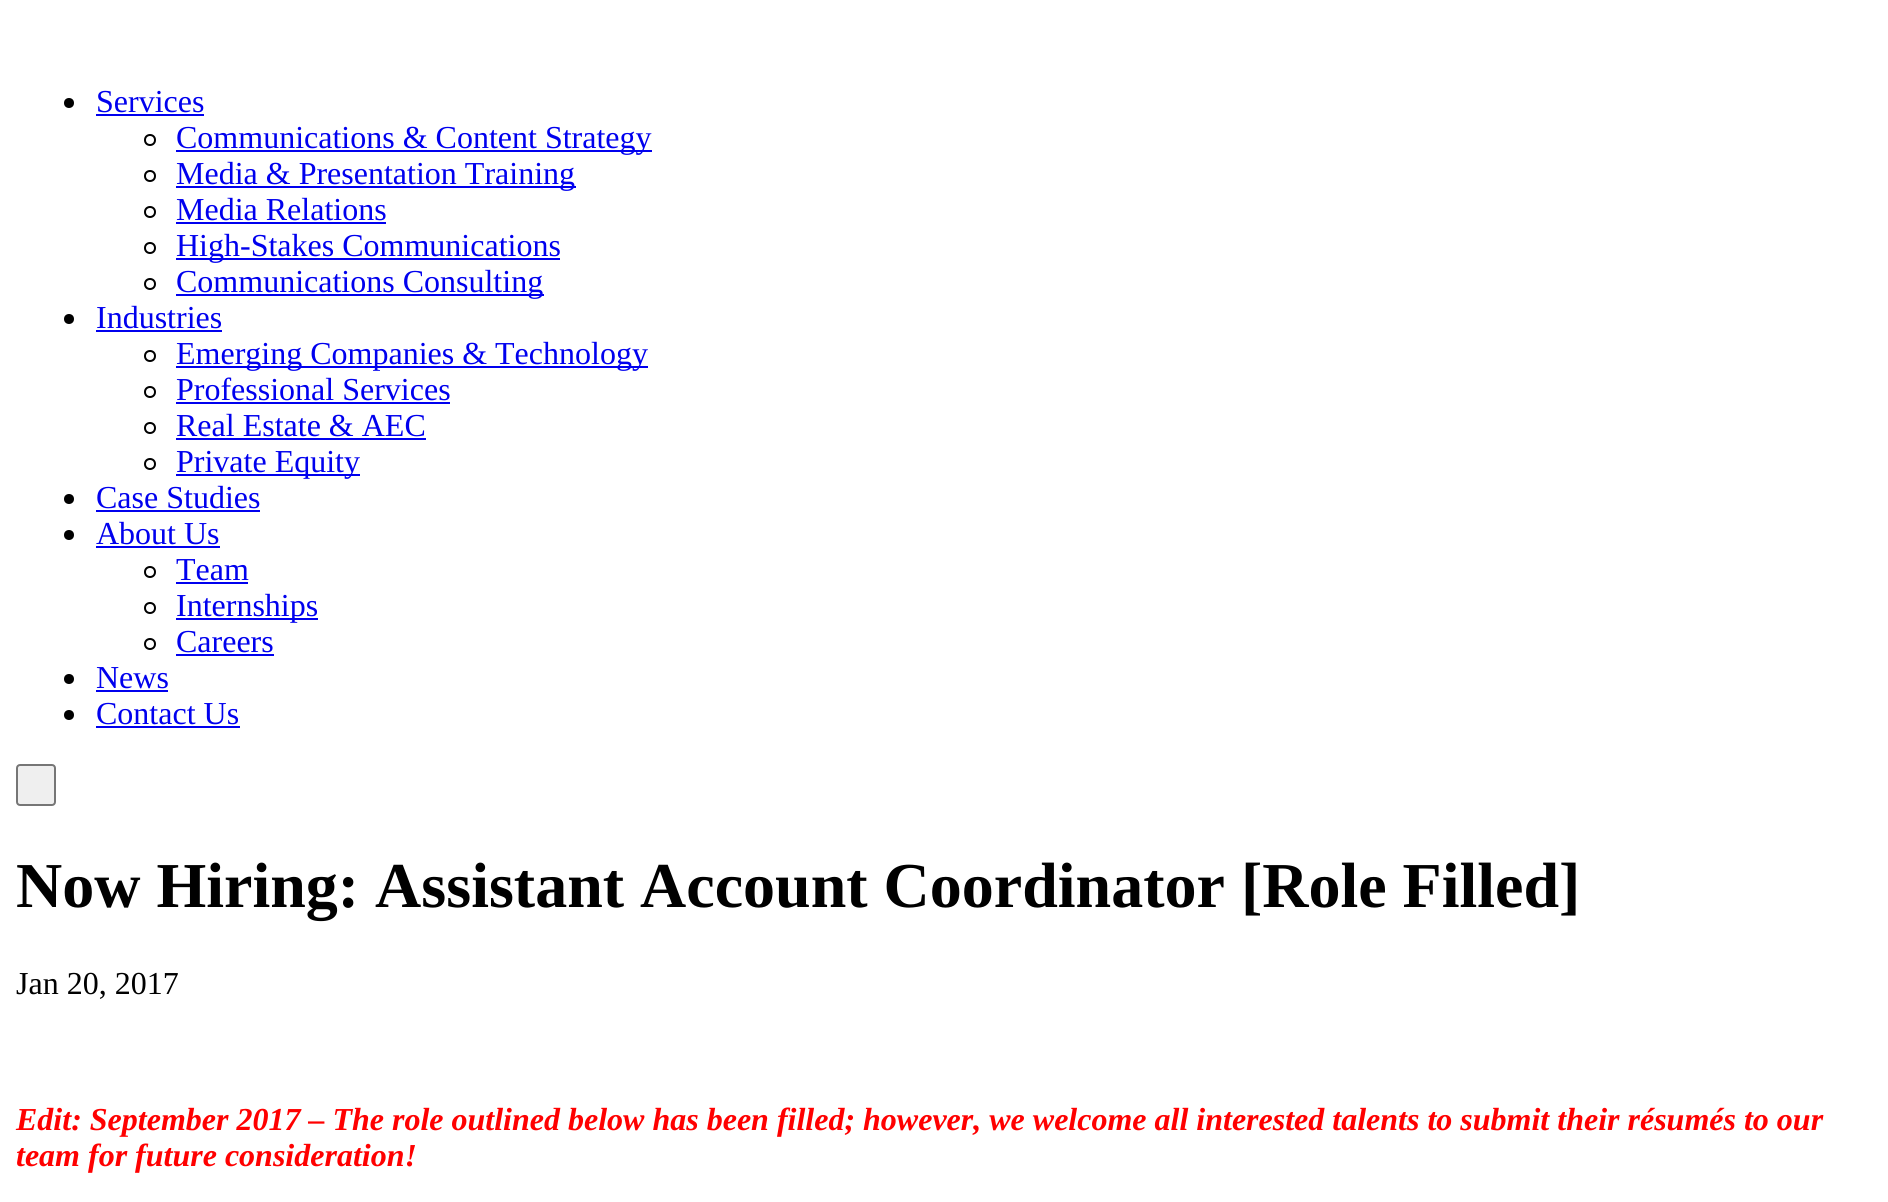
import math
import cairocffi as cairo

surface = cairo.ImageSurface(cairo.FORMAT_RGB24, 1888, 1202)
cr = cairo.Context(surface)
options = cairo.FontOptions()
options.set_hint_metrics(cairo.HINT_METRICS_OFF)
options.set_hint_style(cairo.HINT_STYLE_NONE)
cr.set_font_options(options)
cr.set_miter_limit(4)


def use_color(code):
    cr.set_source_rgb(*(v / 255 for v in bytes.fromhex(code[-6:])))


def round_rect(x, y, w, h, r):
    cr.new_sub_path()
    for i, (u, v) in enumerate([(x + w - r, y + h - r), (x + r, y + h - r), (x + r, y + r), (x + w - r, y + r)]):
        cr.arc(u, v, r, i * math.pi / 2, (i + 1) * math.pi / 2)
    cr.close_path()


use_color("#ffffff")
cr.paint()
use_color("#000000")
cr.arc(69, 103, 5, 0, 2 * math.pi)
cr.fill()
cr.select_font_face("Liberation Serif")
cr.set_font_size(32)
use_color("#0000ee")
cr.move_to(96, 112)
cr.show_text("Services")
cr.rectangle(96, 114, 108, 2)
cr.fill()
cr.arc(150, 140, 5, 0, 2 * math.pi)
use_color("#000000")
cr.stroke()
use_color("#0000ee")
cr.rectangle(176, 150, 476, 2)
cr.fill()
cr.move_to(176, 148)
cr.show_text("Communications & Content Strategy")
cr.new_path()
cr.arc(150, 176, 5, 0, 2 * math.pi)
use_color("#000000")
cr.stroke()
use_color("#0000ee")
cr.rectangle(176, 186, 400, 2)
cr.fill()
cr.move_to(176, 184)
cr.show_text("Media & Presentation Training")
cr.new_path()
cr.arc(150, 212, 5, 0, 2 * math.pi)
use_color("#000000")
cr.stroke()
use_color("#0000ee")
cr.move_to(176, 220)
cr.show_text("Media Relations")
cr.rectangle(176, 222, 210, 2)
cr.fill()
cr.arc(150, 248, 5, 0, 2 * math.pi)
use_color("#000000")
cr.stroke()
use_color("#0000ee")
cr.rectangle(176, 258, 384, 2)
cr.fill()
cr.move_to(176, 256)
cr.show_text("High-Stakes Communications")
cr.new_path()
cr.arc(150, 284, 5, 0, 2 * math.pi)
use_color("#000000")
cr.stroke()
use_color("#0000ee")
cr.rectangle(176, 294, 368, 2)
cr.fill()
cr.move_to(176, 292)
cr.show_text("Communications Consulting")
use_color("#000000")
cr.new_path()
cr.arc(69, 319, 5, 0, 2 * math.pi)
cr.fill()
use_color("#0000ee")
cr.move_to(96, 328)
cr.show_text("Industries")
cr.rectangle(96, 330, 126, 2)
cr.fill()
cr.arc(150, 356, 5, 0, 2 * math.pi)
use_color("#000000")
cr.stroke()
use_color("#0000ee")
cr.rectangle(176, 366, 472, 2)
cr.fill()
cr.move_to(176, 364)
cr.show_text("Emerging Companies & Technology")
cr.new_path()
cr.arc(150, 392, 5, 0, 2 * math.pi)
use_color("#000000")
cr.stroke()
use_color("#0000ee")
cr.move_to(176, 400)
cr.show_text("Professional Services")
cr.rectangle(176, 402, 274, 2)
cr.fill()
cr.arc(150, 428, 5, 0, 2 * math.pi)
use_color("#000000")
cr.stroke()
use_color("#0000ee")
cr.move_to(176, 436)
cr.show_text("Real Estate & AEC")
cr.rectangle(176, 438, 250, 2)
cr.fill()
cr.arc(150, 464, 5, 0, 2 * math.pi)
use_color("#000000")
cr.stroke()
use_color("#0000ee")
cr.rectangle(176, 474, 184, 2)
cr.fill()
cr.move_to(176, 472)
cr.show_text("Private Equity")
use_color("#000000")
cr.new_path()
cr.arc(69, 499, 5, 0, 2 * math.pi)
cr.fill()
use_color("#0000ee")
cr.move_to(96, 508)
cr.show_text("Case Studies")
cr.rectangle(96, 510, 164, 2)
cr.fill()
use_color("#000000")
cr.arc(69, 535, 5, 0, 2 * math.pi)
cr.fill()
use_color("#0000ee")
cr.move_to(96, 544)
cr.show_text("About Us")
cr.rectangle(96, 546, 124, 2)
cr.fill()
cr.arc(150, 572, 5, 0, 2 * math.pi)
use_color("#000000")
cr.stroke()
use_color("#0000ee")
cr.move_to(176, 580)
cr.show_text("Team")
cr.rectangle(176, 582, 72, 2)
cr.fill()
cr.arc(150, 608, 5, 0, 2 * math.pi)
use_color("#000000")
cr.stroke()
use_color("#0000ee")
cr.rectangle(176, 618, 142, 2)
cr.fill()
cr.move_to(176, 616)
cr.show_text("Internships")
cr.new_path()
cr.arc(150, 644, 5, 0, 2 * math.pi)
use_color("#000000")
cr.stroke()
use_color("#0000ee")
cr.move_to(176, 652)
cr.show_text("Careers")
cr.rectangle(176, 654, 98, 2)
cr.fill()
use_color("#000000")
cr.arc(69, 679, 5, 0, 2 * math.pi)
cr.fill()
use_color("#0000ee")
cr.move_to(96, 688)
cr.show_text("News")
cr.rectangle(96, 690, 72, 2)
cr.fill()
use_color("#000000")
cr.arc(69, 715, 5, 0, 2 * math.pi)
cr.fill()
use_color("#0000ee")
cr.move_to(96, 724)
cr.show_text("Contact Us")
cr.rectangle(96, 726, 144, 2)
cr.fill()
use_color("#efefef")
round_rect(17, 765, 38, 40, 3)
cr.fill_preserve()
use_color("#767676")
cr.stroke()
cr.select_font_face("Liberation Serif", cairo.FONT_SLANT_NORMAL, cairo.FONT_WEIGHT_BOLD)
cr.set_font_size(64)
use_color("#000000")
cr.move_to(16, 907)
cr.show_text("Now Hiring: Assistant Account Coordinator [Role Filled]")
cr.select_font_face("Liberation Serif")
cr.set_font_size(32)
cr.move_to(16, 994)
cr.show_text("Jan 20, 2017")
cr.select_font_face("Liberation Serif", cairo.FONT_SLANT_ITALIC, cairo.FONT_WEIGHT_BOLD)
use_color("#ff0000")
cr.move_to(16, 1130)
cr.show_text("Edit: September 2017 – The role outlined below has been filled; however, we welcome all interested talents to submit their résumés to our")
cr.move_to(16, 1166)
cr.show_text("team for future consideration!")
surface.write_to_png("result.png")
